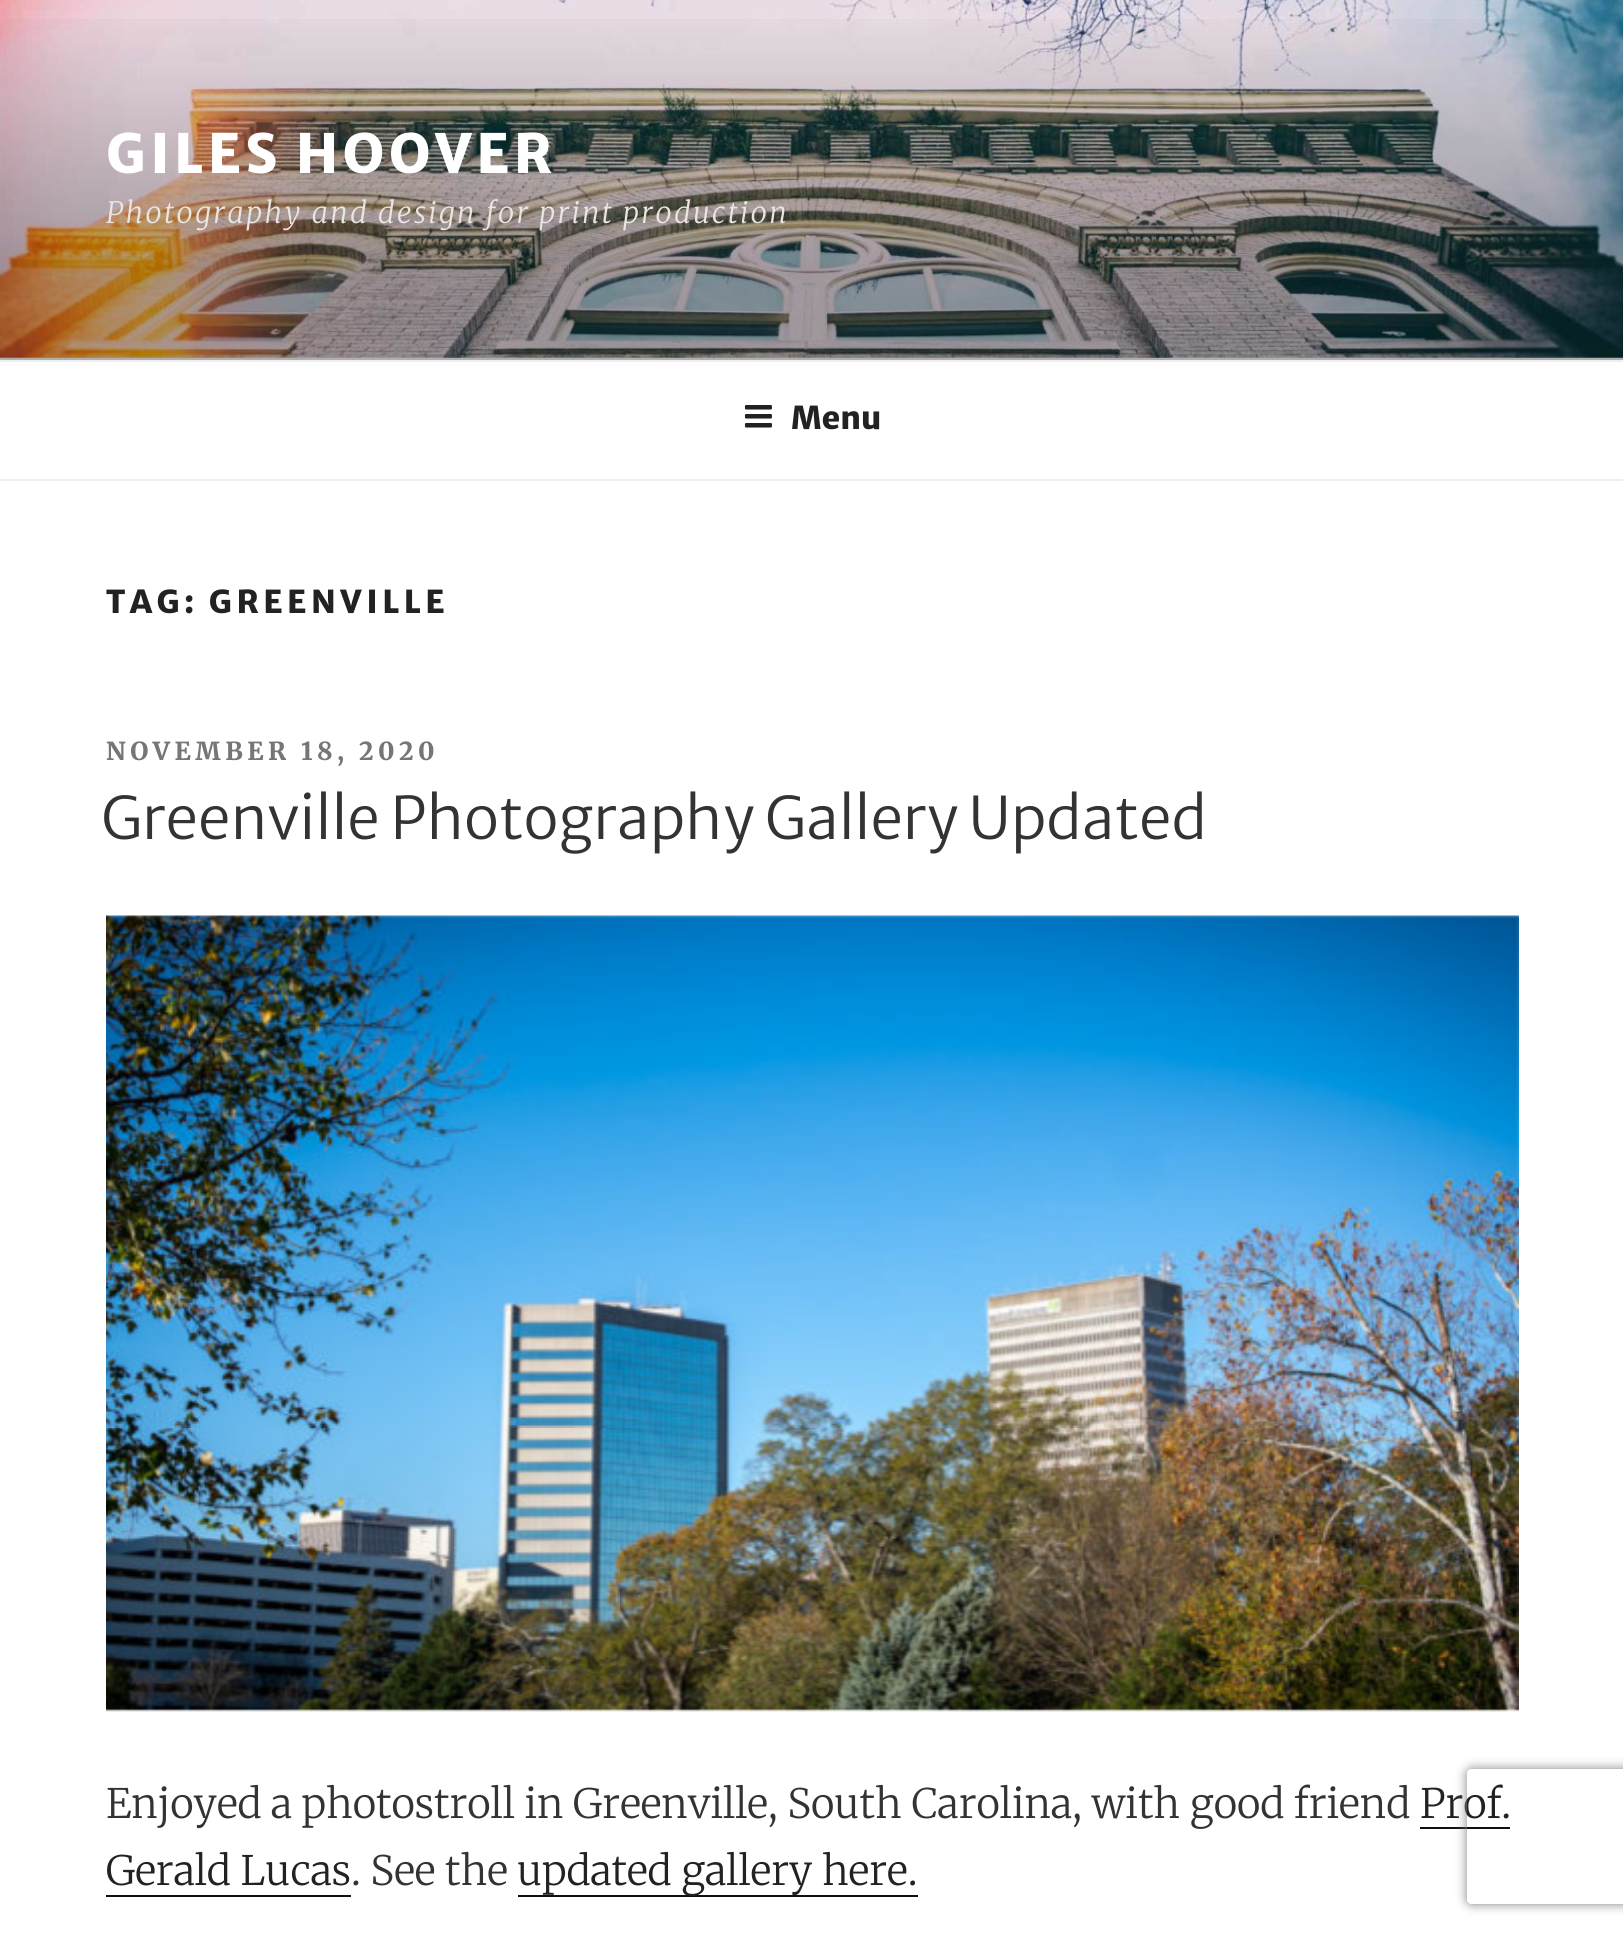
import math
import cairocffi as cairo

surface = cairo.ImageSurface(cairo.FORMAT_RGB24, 1623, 1935)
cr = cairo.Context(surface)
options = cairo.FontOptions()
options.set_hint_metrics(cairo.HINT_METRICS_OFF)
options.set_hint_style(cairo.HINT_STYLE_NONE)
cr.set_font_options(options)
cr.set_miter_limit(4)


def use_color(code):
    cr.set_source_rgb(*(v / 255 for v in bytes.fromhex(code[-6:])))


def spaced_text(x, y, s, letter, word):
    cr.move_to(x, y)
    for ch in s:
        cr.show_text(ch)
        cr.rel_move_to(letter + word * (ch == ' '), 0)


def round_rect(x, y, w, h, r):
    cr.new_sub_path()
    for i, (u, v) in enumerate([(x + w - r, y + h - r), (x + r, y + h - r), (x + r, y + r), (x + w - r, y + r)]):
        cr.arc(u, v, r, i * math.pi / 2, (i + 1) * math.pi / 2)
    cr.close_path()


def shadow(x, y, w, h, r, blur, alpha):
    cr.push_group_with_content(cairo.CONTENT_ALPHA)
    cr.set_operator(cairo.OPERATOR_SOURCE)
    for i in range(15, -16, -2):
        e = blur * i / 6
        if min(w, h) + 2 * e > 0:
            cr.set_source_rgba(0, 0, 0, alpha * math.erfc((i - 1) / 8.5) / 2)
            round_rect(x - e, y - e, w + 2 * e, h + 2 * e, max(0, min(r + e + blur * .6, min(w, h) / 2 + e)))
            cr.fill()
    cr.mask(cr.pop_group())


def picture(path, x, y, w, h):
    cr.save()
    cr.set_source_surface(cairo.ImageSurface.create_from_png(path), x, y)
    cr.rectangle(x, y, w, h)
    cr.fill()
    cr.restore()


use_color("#ffffff")
cr.paint()
use_color("#fafafa")
cr.rectangle(0, 357, 1623, 3)
cr.fill()
picture("img1.png", 0, 0, 1623, 358)
gradient = cairo.LinearGradient(812, 0, 812, 360)
gradient.add_color_stop_rgba(0, 0, 0, 0, 0)
gradient.add_color_stop_rgba(0.75, 0, 0, 0, 0.3)
gradient.add_color_stop_rgba(1, 0, 0, 0, 0.3)
cr.set_source(gradient)
cr.rectangle(0, 19, 1623, 341)
cr.fill()
cr.select_font_face("Merriweather Sans ExtraBold")
cr.set_font_size(54)
use_color("#ffffff")
spaced_text(106, 173, "GILES HOOVER", 4.25, 0)
cr.select_font_face("Merriweather Light", cairo.FONT_SLANT_ITALIC)
cr.set_font_size(29.25)
use_color("#e9e6e3")
spaced_text(106, 223, "Photography and design for print production", 2.25, 0)
use_color("#eeeeee")
cr.rectangle(0, 360, 1623, 2)
cr.fill()
cr.rectangle(0, 479, 1623, 2)
cr.fill()
picture("img2.png", 744, 405, 28, 23)
cr.select_font_face("Merriweather Sans ExtraBold")
cr.set_font_size(31.5)
use_color("#222222")
cr.move_to(791, 429)
cr.show_text("Menu")
spaced_text(106, 613, "TAG: GREENVILLE", 4.4, 0)
cr.select_font_face("Merriweather ExtraBold")
cr.set_font_size(24.75)
use_color("#767676")
spaced_text(106, 760, "NOVEMBER 18, 2020", 4.5, 0)
cr.select_font_face("Merriweather Sans Light")
cr.set_font_size(58.5)
use_color("#333333")
cr.move_to(101, 839)
cr.show_text("Greenville Photography Gallery Updated")
picture("img3.png", 106, 915, 1413, 797)
cr.select_font_face("Merriweather Light")
cr.set_font_size(40.5)
cr.move_to(106, 1818)
cr.show_text("Enjoyed a photostroll in Greenville, South Carolina, with good friend")
use_color("#222222")
cr.move_to(1420, 1818)
cr.show_text("Prof.")
use_color("#0f0f0f")
cr.rectangle(1420, 1827, 90, 2)
cr.fill()
use_color("#222222")
cr.move_to(106, 1885)
cr.show_text("Gerald Lucas")
use_color("#0f0f0f")
cr.rectangle(106, 1895, 245, 2)
cr.fill()
use_color("#333333")
cr.move_to(351, 1885)
cr.show_text(". See the")
use_color("#0f0f0f")
cr.rectangle(518, 1895, 400, 2)
cr.fill()
use_color("#222222")
cr.move_to(517, 1885)
cr.show_text("updated gallery here.")
cr.save()
cr.set_fill_rule(cairo.FILL_RULE_EVEN_ODD)
cr.new_path()
cr.move_to(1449, 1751)
cr.line_to(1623, 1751)
cr.line_to(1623, 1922)
cr.line_to(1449, 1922)
cr.close_path()
cr.move_to(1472, 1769)
cr.line_to(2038, 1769)
cr.curve_to(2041, 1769, 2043, 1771, 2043, 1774)
cr.line_to(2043, 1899)
cr.curve_to(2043, 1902, 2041, 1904, 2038, 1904)
cr.line_to(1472, 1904)
cr.curve_to(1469, 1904, 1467, 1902, 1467, 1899)
cr.line_to(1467, 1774)
cr.curve_to(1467, 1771, 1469, 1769, 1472, 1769)
cr.close_path()
cr.clip()
use_color("#808080")
shadow(1467, 1769, 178, 135, 5, 5.5, 1)
cr.restore()
surface.write_to_png("result.png")
